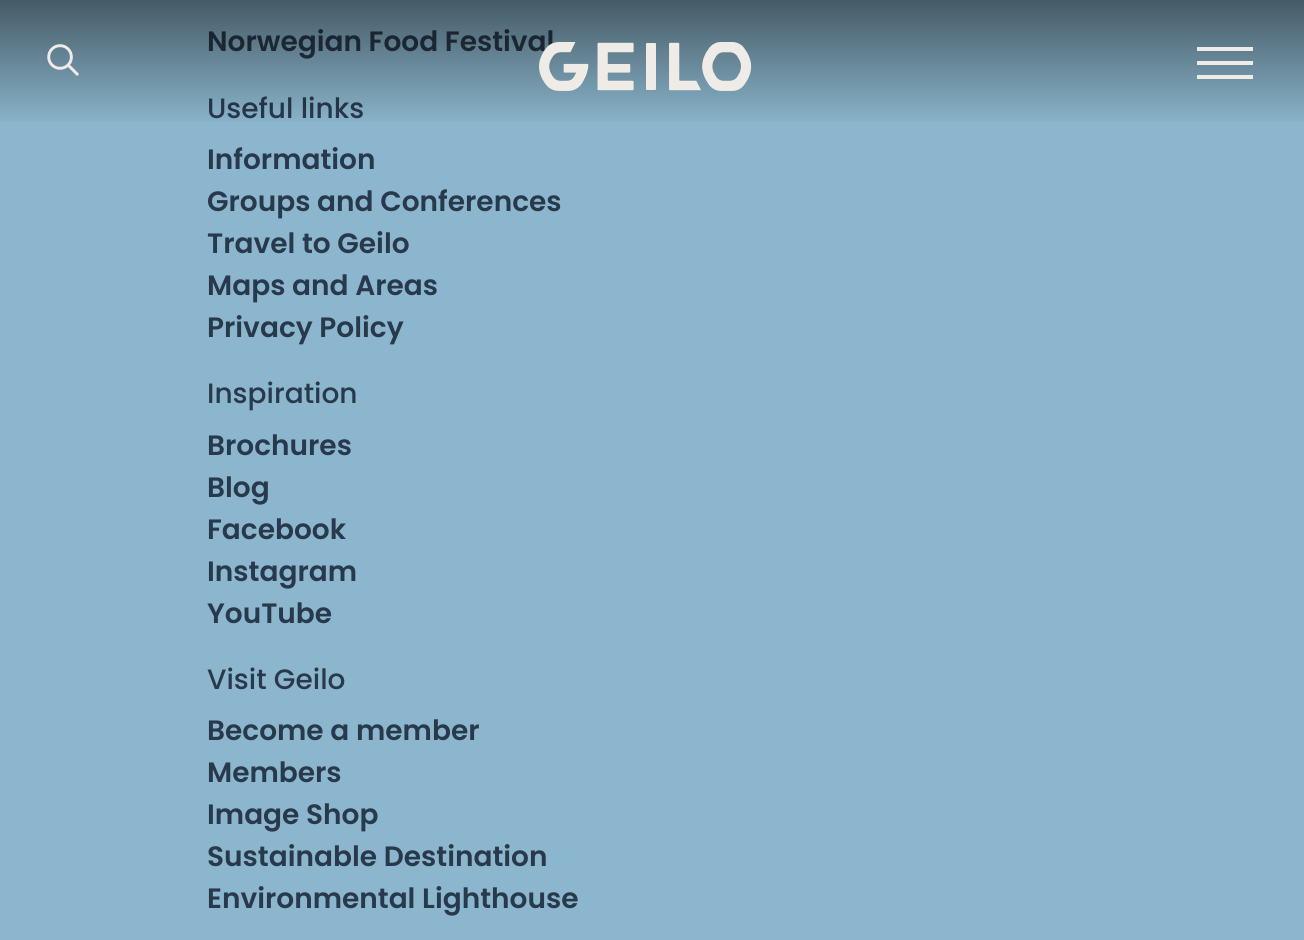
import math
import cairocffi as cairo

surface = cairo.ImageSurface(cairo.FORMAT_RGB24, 1304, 940)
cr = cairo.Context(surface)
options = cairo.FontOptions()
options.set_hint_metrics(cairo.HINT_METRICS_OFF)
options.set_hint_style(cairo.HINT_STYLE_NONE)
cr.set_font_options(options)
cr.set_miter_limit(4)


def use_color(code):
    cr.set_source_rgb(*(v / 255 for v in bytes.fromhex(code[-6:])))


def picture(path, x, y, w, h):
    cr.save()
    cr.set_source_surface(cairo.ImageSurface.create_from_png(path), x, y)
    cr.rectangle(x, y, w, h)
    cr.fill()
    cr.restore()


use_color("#8bb6cd")
cr.paint()
cr.select_font_face("Poppins SemiBold")
cr.set_font_size(28)
use_color("#29394c")
cr.move_to(207, 51)
cr.show_text("Norwegian Food Festival")
cr.select_font_face("Poppins Medium")
cr.move_to(207, 118)
cr.show_text("Useful links")
gradient = cairo.LinearGradient(653, 0, 653, 128)
gradient.add_color_stop_rgba(0, 0, 0, 0, 0.5)
gradient.add_color_stop_rgba(1, 0, 0, 0, 0)
cr.set_source(gradient)
cr.rectangle(0, 0, 1304, 122)
cr.fill()
picture("img1.png", 47, 44, 32, 32)
picture("img2.png", 539, 42, 213, 49)
use_color("#efece8")
cr.rectangle(1197, 47, 56, 4)
cr.fill()
cr.rectangle(1197, 61, 56, 4)
cr.fill()
cr.rectangle(1197, 75, 56, 4)
cr.fill()
cr.select_font_face("Poppins SemiBold")
use_color("#29394c")
cr.move_to(207, 169)
cr.show_text("Information")
cr.move_to(207, 211)
cr.show_text("Groups and Conferences")
cr.move_to(207, 253)
cr.show_text("Travel to Geilo")
cr.move_to(207, 295)
cr.show_text("Maps and Areas")
cr.move_to(207, 337)
cr.show_text("Privacy Policy")
cr.select_font_face("Poppins Medium")
cr.move_to(207, 403)
cr.show_text("Inspiration")
cr.select_font_face("Poppins SemiBold")
cr.move_to(207, 455)
cr.show_text("Brochures")
cr.move_to(207, 497)
cr.show_text("Blog")
cr.move_to(207, 539)
cr.show_text("Facebook")
cr.move_to(207, 581)
cr.show_text("Instagram")
cr.move_to(207, 623)
cr.show_text("YouTube")
cr.select_font_face("Poppins Medium")
cr.move_to(207, 689)
cr.show_text("Visit Geilo")
cr.select_font_face("Poppins SemiBold")
cr.move_to(207, 740)
cr.show_text("Become a member")
cr.move_to(207, 782)
cr.show_text("Members")
cr.move_to(207, 824)
cr.show_text("Image Shop")
cr.move_to(207, 866)
cr.show_text("Sustainable Destination")
cr.move_to(207, 908)
cr.show_text("Environmental Lighthouse")
surface.write_to_png("result.png")
